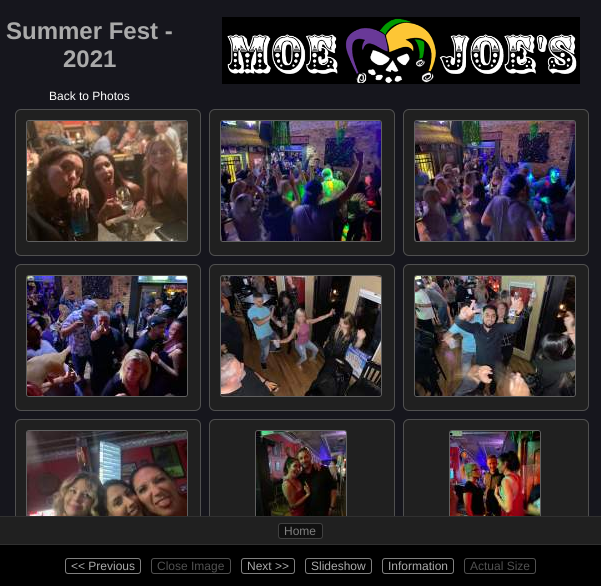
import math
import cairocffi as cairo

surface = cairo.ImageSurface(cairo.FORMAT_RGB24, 601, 586)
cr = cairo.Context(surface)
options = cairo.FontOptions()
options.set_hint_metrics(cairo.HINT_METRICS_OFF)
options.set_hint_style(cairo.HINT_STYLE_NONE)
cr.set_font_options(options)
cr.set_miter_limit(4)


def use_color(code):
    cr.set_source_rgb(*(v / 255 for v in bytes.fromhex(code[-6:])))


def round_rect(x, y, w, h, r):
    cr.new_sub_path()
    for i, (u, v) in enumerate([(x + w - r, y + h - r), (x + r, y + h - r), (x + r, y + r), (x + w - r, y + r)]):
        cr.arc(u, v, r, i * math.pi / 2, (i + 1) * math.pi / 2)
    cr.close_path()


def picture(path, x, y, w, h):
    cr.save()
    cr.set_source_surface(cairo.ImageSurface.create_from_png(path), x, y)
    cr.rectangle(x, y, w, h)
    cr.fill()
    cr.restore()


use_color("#16161d")
cr.paint()
cr.select_font_face("Liberation Sans", cairo.FONT_SLANT_NORMAL, cairo.FONT_WEIGHT_BOLD)
cr.set_font_size(24)
use_color("#aaaaaa")
cr.move_to(6, 39)
cr.show_text("Summer Fest -")
cr.move_to(63, 67)
cr.show_text("2021")
cr.select_font_face("Liberation Sans")
cr.set_font_size(12)
use_color("#ffffff")
cr.move_to(49, 100)
cr.show_text("Back to Photos")
picture("img1.png", 222, 17, 358, 67)
use_color("#202020")
round_rect(15.5, 109.5, 185, 146, 5.5)
cr.fill_preserve()
use_color("#505050")
cr.set_line_width(1)
cr.stroke()
round_rect(26.5, 120.5, 161, 121, 2.5)
use_color("#606060")
cr.stroke()
picture("img2.png", 27, 121, 160, 120)
use_color("#202020")
round_rect(209.5, 109.5, 185, 146, 5.5)
cr.fill_preserve()
use_color("#505050")
cr.stroke()
round_rect(220.5, 120.5, 161, 121, 2.5)
use_color("#606060")
cr.stroke()
picture("img3.png", 221, 121, 160, 120)
use_color("#202020")
round_rect(403.5, 109.5, 185, 146, 5.5)
cr.fill_preserve()
use_color("#505050")
cr.stroke()
round_rect(414.5, 120.5, 161, 121, 2.5)
use_color("#606060")
cr.stroke()
picture("img4.png", 415, 121, 160, 120)
use_color("#202020")
round_rect(15.5, 264.5, 185, 146, 5.5)
cr.fill_preserve()
use_color("#505050")
cr.stroke()
round_rect(26.5, 275.5, 161, 121, 2.5)
use_color("#606060")
cr.stroke()
picture("img5.png", 27, 276, 160, 120)
use_color("#202020")
round_rect(209.5, 264.5, 185, 146, 5.5)
cr.fill_preserve()
use_color("#505050")
cr.stroke()
round_rect(220.5, 275.5, 161, 121, 2.5)
use_color("#606060")
cr.stroke()
picture("img6.png", 221, 276, 160, 120)
use_color("#202020")
round_rect(403.5, 264.5, 185, 146, 5.5)
cr.fill_preserve()
use_color("#505050")
cr.stroke()
round_rect(414.5, 275.5, 161, 121, 2.5)
use_color("#606060")
cr.stroke()
picture("img7.png", 415, 276, 160, 120)
use_color("#202020")
cr.new_path()
cr.move_to(21, 419)
cr.line_to(195, 419)
cr.curve_to(198.5, 419, 201, 421.5, 201, 425)
cr.line_to(201, 516)
cr.line_to(15, 516)
cr.line_to(15, 425)
cr.curve_to(15, 421.5, 17.5, 419, 21, 419)
cr.close_path()
cr.fill()
round_rect(15.5, 419.5, 185, 146, 5.5)
use_color("#505050")
cr.stroke()
round_rect(26.5, 430.5, 161, 121, 2.5)
use_color("#606060")
cr.stroke()
picture("img8.png", 27, 431, 160, 85)
use_color("#202020")
cr.new_path()
cr.move_to(215, 419)
cr.line_to(389, 419)
cr.curve_to(392.5, 419, 395, 421.5, 395, 425)
cr.line_to(395, 516)
cr.line_to(209, 516)
cr.line_to(209, 425)
cr.curve_to(209, 421.5, 211.5, 419, 215, 419)
cr.close_path()
cr.fill()
round_rect(209.5, 419.5, 185, 146, 5.5)
use_color("#505050")
cr.stroke()
round_rect(255.5, 430.5, 91, 121, 2.5)
use_color("#606060")
cr.stroke()
picture("img9.png", 256, 431, 90, 85)
use_color("#202020")
cr.new_path()
cr.move_to(409, 419)
cr.line_to(583, 419)
cr.curve_to(586.5, 419, 589, 421.5, 589, 425)
cr.line_to(589, 516)
cr.line_to(403, 516)
cr.line_to(403, 425)
cr.curve_to(403, 421.5, 405.5, 419, 409, 419)
cr.close_path()
cr.fill()
round_rect(403.5, 419.5, 185, 146, 5.5)
use_color("#505050")
cr.stroke()
round_rect(449.5, 430.5, 91, 121, 2.5)
use_color("#606060")
cr.stroke()
picture("img10.png", 450, 431, 90, 85)
use_color("#202020")
cr.rectangle(0, 517, 601, 27)
cr.fill()
use_color("#303030")
cr.rectangle(0, 516, 601, 1)
cr.fill()
use_color("#101010")
round_rect(278.5, 523.5, 44, 15, 2.5)
cr.fill_preserve()
use_color("#404040")
cr.stroke()
use_color("#808080")
cr.move_to(284, 535)
cr.show_text("Home")
use_color("#000000")
cr.rectangle(0, 545, 601, 41)
cr.fill()
use_color("#303030")
cr.rectangle(0, 544, 601, 1)
cr.fill()
round_rect(65.5, 558.5, 75, 15, 2.5)
use_color("#808080")
cr.stroke()
use_color("#aaaaaa")
cr.move_to(71, 570)
cr.show_text("<< Previous")
round_rect(151.5, 558.5, 79, 15, 2.5)
use_color("#505050")
cr.stroke()
cr.move_to(157, 570)
cr.show_text("Close Image")
round_rect(241.5, 558.5, 53, 15, 2.5)
use_color("#808080")
cr.stroke()
use_color("#aaaaaa")
cr.move_to(247, 570)
cr.show_text("Next >>")
round_rect(305.5, 558.5, 66, 15, 2.5)
use_color("#808080")
cr.stroke()
use_color("#aaaaaa")
cr.move_to(311, 570)
cr.show_text("Slideshow")
round_rect(382.5, 558.5, 71, 15, 2.5)
use_color("#808080")
cr.stroke()
use_color("#aaaaaa")
cr.move_to(388, 570)
cr.show_text("Information")
round_rect(464.5, 558.5, 71, 15, 2.5)
use_color("#505050")
cr.stroke()
cr.move_to(470, 570)
cr.show_text("Actual Size")
surface.write_to_png("result.png")
